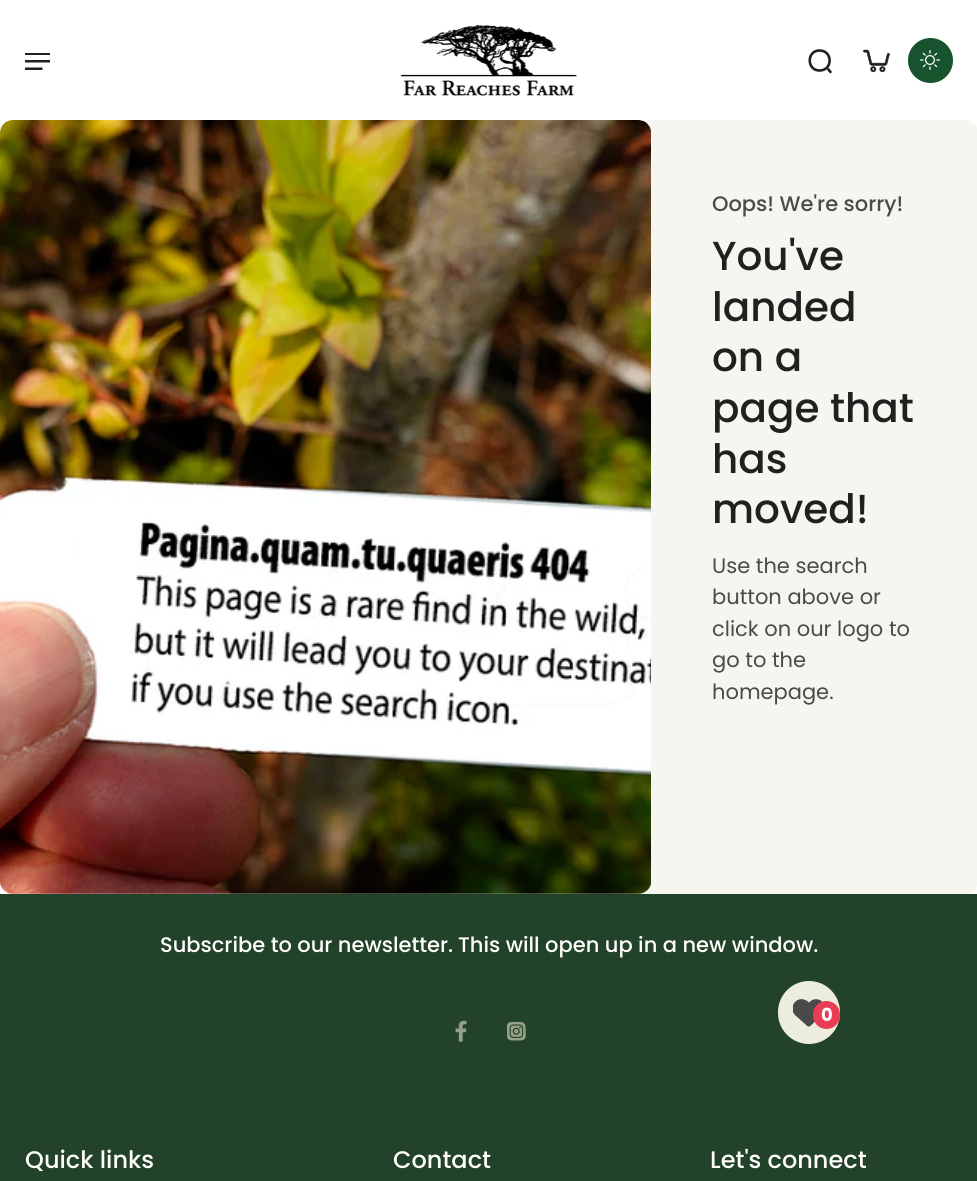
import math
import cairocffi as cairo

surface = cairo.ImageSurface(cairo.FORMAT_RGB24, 977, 1181)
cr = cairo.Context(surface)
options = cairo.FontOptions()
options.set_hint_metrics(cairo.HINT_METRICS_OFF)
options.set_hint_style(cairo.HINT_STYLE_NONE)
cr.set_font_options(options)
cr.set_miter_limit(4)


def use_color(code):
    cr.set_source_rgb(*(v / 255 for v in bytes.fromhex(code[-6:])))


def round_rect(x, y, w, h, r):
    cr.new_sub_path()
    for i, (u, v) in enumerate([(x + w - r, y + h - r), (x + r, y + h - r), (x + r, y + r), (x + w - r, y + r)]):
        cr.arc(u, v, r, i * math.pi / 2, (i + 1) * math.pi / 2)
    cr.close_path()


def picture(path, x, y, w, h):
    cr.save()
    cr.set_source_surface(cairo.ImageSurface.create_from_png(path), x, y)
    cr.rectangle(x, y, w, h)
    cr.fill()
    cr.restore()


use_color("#fffefc")
cr.paint()
use_color("#ffffff")
cr.rectangle(0, 0, 977, 120)
cr.fill()
picture("img1.png", 25, 53, 25, 17)
picture("img2.png", 400, 25, 177, 71)
cr.new_path()
cr.move_to(819.5, 70.5)
cr.curve_to(833, 70.5, 833, 50.5, 819.5, 50.5)
cr.curve_to(806.5, 50.5, 806.5, 70.5, 819.5, 70.5)
cr.close_path()
cr.move_to(830.5, 72)
cr.line_to(828.5, 69.5)
use_color("#212020")
cr.set_line_width(2.6)
cr.set_line_cap(cairo.LINE_CAP_ROUND)
cr.set_line_join(cairo.LINE_JOIN_ROUND)
cr.stroke()
picture("img3.png", 863, 49, 27, 24)
use_color("#17532d")
cr.arc(930.5, 60.5, 22.5, 0, 2 * math.pi)
cr.fill()
picture("img4.png", 920, 50, 20, 20)
use_color("#f6f6f0")
round_rect(0, 120, 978, 774, 13)
cr.fill()
picture("img5.png", 0, 120, 651, 774)
cr.select_font_face("Poppins Medium")
cr.set_font_size(21)
use_color("#4b4949")
cr.move_to(712, 211)
cr.show_text("Oops! We're sorry!")
cr.set_font_size(40.5)
use_color("#212020")
cr.move_to(712, 270)
cr.show_text("You've")
cr.move_to(712, 321)
cr.show_text("landed")
cr.move_to(712, 371)
cr.show_text("on a")
cr.move_to(712, 422)
cr.show_text("page that")
cr.move_to(712, 473)
cr.show_text("has")
cr.move_to(712, 523)
cr.show_text("moved!")
cr.select_font_face("Poppins")
cr.set_font_size(21)
use_color("#4b4949")
cr.move_to(712, 573)
cr.show_text("Use the search")
cr.move_to(712, 604)
cr.show_text("button above or")
cr.move_to(712, 636)
cr.show_text("click on our logo to")
cr.move_to(712, 667)
cr.show_text("go to the")
cr.move_to(712, 699)
cr.show_text("homepage.")
use_color("#224229")
cr.rectangle(0, 894, 977, 287)
cr.fill()
cr.select_font_face("Poppins Medium")
use_color("#fffefc")
cr.move_to(160, 952)
cr.show_text("Subscribe to our newsletter.")
cr.move_to(458, 952)
cr.show_text("This will open up in a new window.")
picture("img6.png", 455, 1020, 12, 22)
picture("img7.png", 506, 1021, 20, 20)
cr.set_font_size(24)
cr.move_to(25, 1168)
cr.show_text("Quick links")
cr.move_to(393, 1168)
cr.show_text("Contact")
cr.move_to(710, 1168)
cr.show_text("Let's connect")
use_color("#ededdd")
round_rect(778, 981, 62, 63, 31)
cr.fill()
cr.save()
cr.rectangle(793, 996, 32, 33)
cr.clip()
use_color("#4b4949")
cr.new_path()
cr.move_to(795.5, 1015.5)
cr.line_to(805, 1024)
cr.curve_to(808.5, 1027.5, 809, 1027.5, 812.5, 1024)
cr.line_to(816, 1020.5)
cr.curve_to(819, 1018.5, 822, 1016, 824, 1013)
cr.curve_to(829, 1003.5, 817, 994, 809, 1002.5)
cr.curve_to(798.5, 992.5, 786.5, 1007, 795.5, 1015.5)
cr.close_path()
cr.fill()
cr.restore()
use_color("#ea3c53")
round_rect(813, 1001, 27, 28, 13.5)
cr.fill()
cr.select_font_face("Poppins", cairo.FONT_SLANT_NORMAL, cairo.FONT_WEIGHT_BOLD)
cr.set_font_size(18)
use_color("#fffefc")
cr.move_to(821, 1021)
cr.show_text("0")
surface.write_to_png("result.png")
